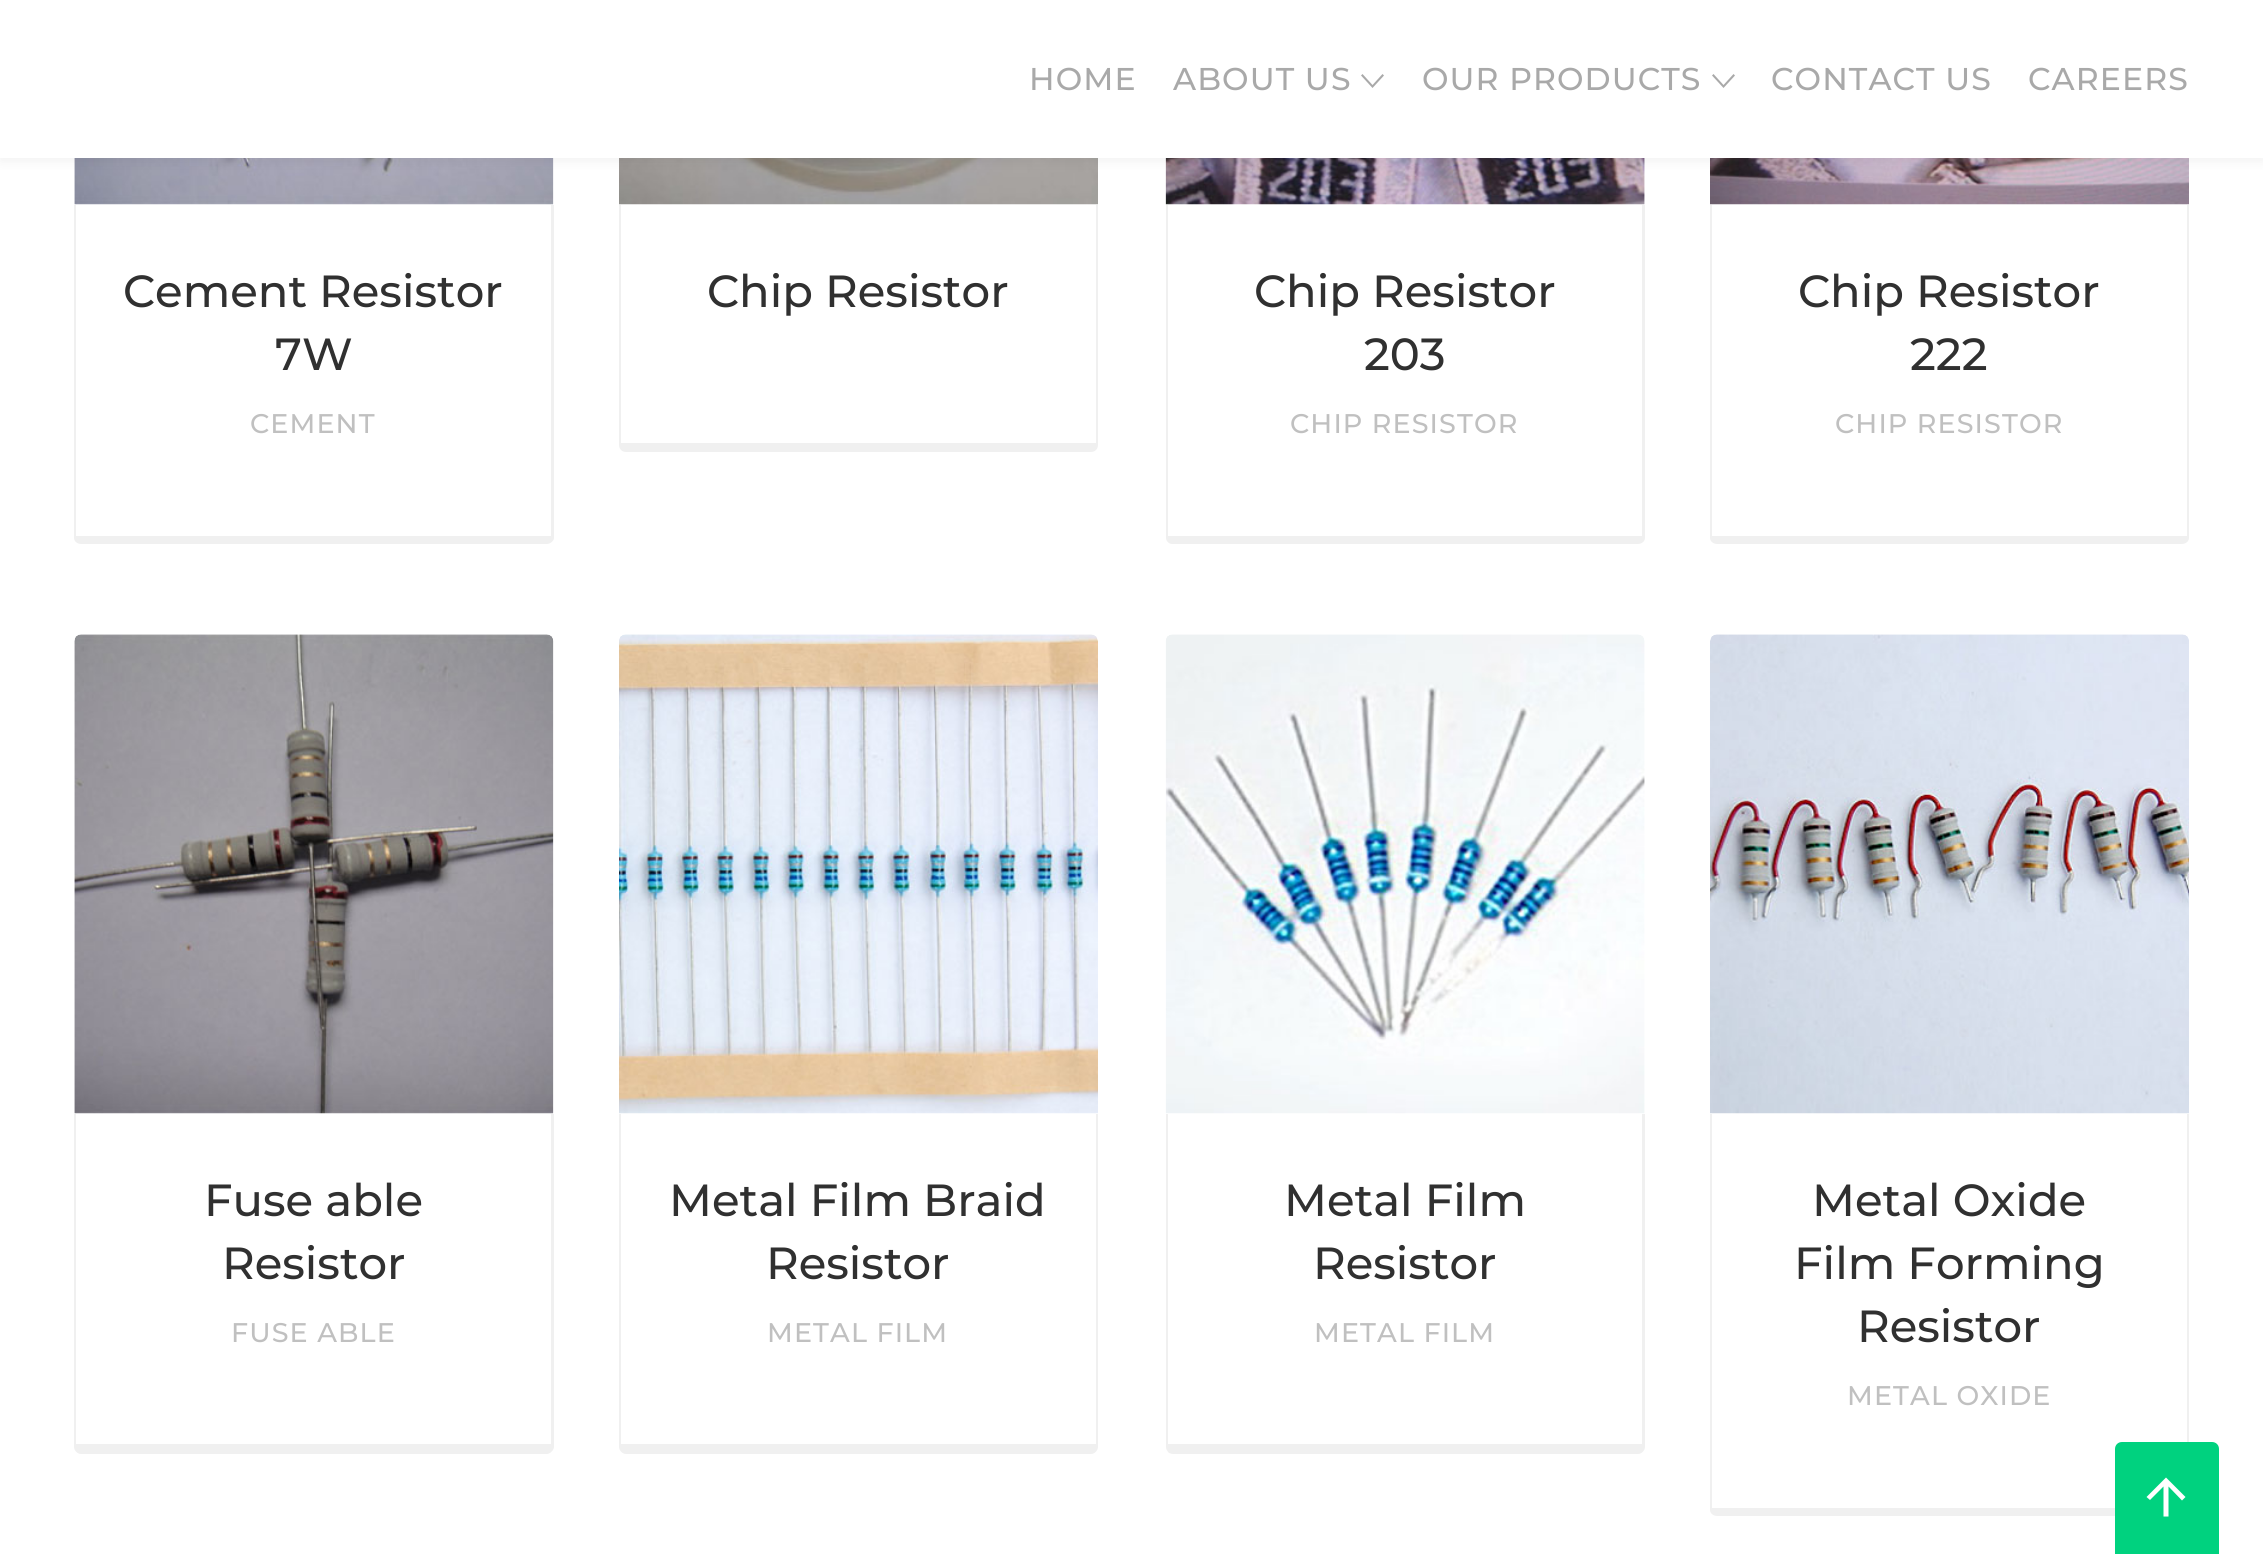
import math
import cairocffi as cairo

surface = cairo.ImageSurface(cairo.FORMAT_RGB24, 2263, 1554)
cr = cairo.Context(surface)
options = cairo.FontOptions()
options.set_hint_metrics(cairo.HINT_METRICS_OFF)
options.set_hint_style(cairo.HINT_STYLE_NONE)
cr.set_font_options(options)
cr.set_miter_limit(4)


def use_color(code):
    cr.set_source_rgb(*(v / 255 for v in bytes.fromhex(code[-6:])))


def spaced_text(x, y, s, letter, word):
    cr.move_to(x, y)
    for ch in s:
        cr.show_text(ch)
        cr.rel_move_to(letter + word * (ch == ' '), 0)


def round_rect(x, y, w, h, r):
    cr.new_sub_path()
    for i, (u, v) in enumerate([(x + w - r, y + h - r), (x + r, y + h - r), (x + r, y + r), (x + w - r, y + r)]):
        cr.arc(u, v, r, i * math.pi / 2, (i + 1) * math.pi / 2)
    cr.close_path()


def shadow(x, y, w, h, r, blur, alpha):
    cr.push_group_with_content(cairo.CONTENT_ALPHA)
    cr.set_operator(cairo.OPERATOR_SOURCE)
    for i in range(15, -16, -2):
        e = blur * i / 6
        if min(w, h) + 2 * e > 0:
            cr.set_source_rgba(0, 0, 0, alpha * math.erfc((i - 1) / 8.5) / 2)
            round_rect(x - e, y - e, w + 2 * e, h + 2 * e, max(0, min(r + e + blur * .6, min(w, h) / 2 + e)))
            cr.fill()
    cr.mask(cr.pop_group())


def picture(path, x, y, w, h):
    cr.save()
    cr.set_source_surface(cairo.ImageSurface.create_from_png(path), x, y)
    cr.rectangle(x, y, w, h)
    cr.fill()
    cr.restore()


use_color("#ffffff")
cr.paint()
picture("img1.png", 74, 158, 480, 47)
picture("img2.png", 619, 158, 479, 47)
picture("img3.png", 1165, 158, 480, 47)
picture("img4.png", 1710, 158, 479, 47)
use_color("#000000")
shadow(0, 5, 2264, 157, 0, 5.5, 0.05)
use_color("#ffffff")
cr.rectangle(0, 0, 2263, 158)
cr.fill()
cr.select_font_face("Montserrat Medium")
cr.set_font_size(31.5)
use_color("#a9a9a9")
spaced_text(1029, 90, "HOME", 1.1, 0)
spaced_text(1173, 90, "ABOUT US", 1.1, 0)
cr.new_path()
cr.move_to(1382.5, 74)
cr.line_to(1384, 75.5)
cr.line_to(1372.5, 88)
cr.line_to(1361, 75.5)
cr.line_to(1362.5, 74)
cr.line_to(1372.5, 85)
cr.close_path()
cr.fill()
spaced_text(1422, 90, "OUR PRODUCTS", 1.1, 0)
cr.new_path()
cr.move_to(1733.5, 74)
cr.line_to(1735, 75.5)
cr.line_to(1723.5, 88)
cr.line_to(1712, 75.5)
cr.line_to(1713.5, 74)
cr.line_to(1723.5, 85)
cr.close_path()
cr.fill()
spaced_text(1771, 90, "CONTACT US", 1.1, 0)
spaced_text(2028, 90, "CAREERS", 1.1, 0)
use_color("#f0f0f0")
cr.set_fill_rule(cairo.FILL_RULE_EVEN_ODD)
cr.new_path()
cr.move_to(74, 205)
cr.line_to(554, 205)
cr.line_to(554, 538)
cr.curve_to(554, 541, 550, 544, 547, 544)
cr.line_to(81, 544)
cr.curve_to(77, 544, 74, 541, 74, 538)
cr.close_path()
cr.move_to(76, 205)
cr.line_to(551, 205)
cr.line_to(551, 536)
cr.line_to(76, 536)
cr.close_path()
cr.fill()
cr.set_font_size(45)
use_color("#303030")
cr.move_to(123, 307)
cr.show_text("Cement Resistor")
cr.move_to(275, 370)
cr.show_text("7W")
cr.set_font_size(27)
use_color("#c0c0c0")
spaced_text(250, 433, "CEMENT", 1.1, 0)
use_color("#f0f0f0")
cr.set_fill_rule(cairo.FILL_RULE_WINDING)
cr.new_path()
cr.move_to(621, 205)
cr.line_to(619, 205)
cr.line_to(619, 445)
cr.curve_to(619, 449, 622, 452, 626, 452)
cr.line_to(1091, 452)
cr.curve_to(1095, 452, 1098, 449, 1098, 445)
cr.line_to(1098, 205)
cr.line_to(1096, 205)
cr.line_to(1096, 443)
cr.line_to(621, 443)
cr.close_path()
cr.fill()
cr.set_font_size(45)
use_color("#303030")
cr.move_to(707, 307)
cr.show_text("Chip Resistor")
use_color("#f0f0f0")
cr.set_fill_rule(cairo.FILL_RULE_EVEN_ODD)
cr.new_path()
cr.move_to(1166, 205)
cr.line_to(1645, 205)
cr.line_to(1645, 538)
cr.curve_to(1645, 541, 1642, 544, 1638, 544)
cr.line_to(1172, 544)
cr.curve_to(1169, 544, 1166, 541, 1166, 538)
cr.close_path()
cr.move_to(1168, 205)
cr.line_to(1642, 205)
cr.line_to(1642, 536)
cr.line_to(1168, 536)
cr.close_path()
cr.fill()
use_color("#303030")
cr.move_to(1254, 307)
cr.show_text("Chip Resistor")
cr.move_to(1364, 370)
cr.show_text("203")
cr.set_font_size(27)
use_color("#c0c0c0")
spaced_text(1290, 433, "CHIP RESISTOR", 1.1, 0)
use_color("#f0f0f0")
cr.new_path()
cr.move_to(1710, 205)
cr.line_to(2189, 205)
cr.line_to(2189, 538)
cr.curve_to(2189, 541, 2186, 544, 2182, 544)
cr.line_to(1717, 544)
cr.curve_to(1713, 544, 1710, 541, 1710, 538)
cr.close_path()
cr.move_to(1712, 205)
cr.line_to(2187, 205)
cr.line_to(2187, 536)
cr.line_to(1712, 536)
cr.close_path()
cr.fill()
cr.set_font_size(45)
use_color("#303030")
cr.move_to(1798, 307)
cr.show_text("Chip Resistor")
cr.move_to(1910, 370)
cr.show_text("222")
cr.set_font_size(27)
use_color("#c0c0c0")
spaced_text(1835, 433, "CHIP RESISTOR", 1.1, 0)
picture("img5.png", 74, 634, 480, 480)
use_color("#f0f0f0")
cr.new_path()
cr.move_to(74, 1114)
cr.line_to(554, 1114)
cr.line_to(554, 1447)
cr.curve_to(554, 1450, 550, 1454, 547, 1454)
cr.line_to(81, 1454)
cr.curve_to(77, 1454, 74, 1450, 74, 1447)
cr.close_path()
cr.move_to(76, 1114)
cr.line_to(551, 1114)
cr.line_to(551, 1444)
cr.line_to(76, 1444)
cr.close_path()
cr.fill()
cr.set_font_size(45)
use_color("#303030")
cr.move_to(204, 1216)
cr.show_text("Fuse able")
cr.move_to(222, 1279)
cr.show_text("Resistor")
cr.set_font_size(27)
use_color("#c0c0c0")
spaced_text(231, 1342, "FUSE ABLE", 1.1, 0)
picture("img6.png", 619, 634, 479, 480)
use_color("#f0f0f0")
cr.new_path()
cr.move_to(619, 1114)
cr.line_to(1098, 1114)
cr.line_to(1098, 1447)
cr.curve_to(1098, 1450, 1095, 1454, 1091, 1454)
cr.line_to(626, 1454)
cr.curve_to(622, 1454, 619, 1450, 619, 1447)
cr.close_path()
cr.move_to(621, 1114)
cr.line_to(1096, 1114)
cr.line_to(1096, 1444)
cr.line_to(621, 1444)
cr.close_path()
cr.fill()
cr.set_font_size(45)
use_color("#303030")
cr.move_to(669, 1216)
cr.show_text("Metal Film Braid")
cr.move_to(766, 1279)
cr.show_text("Resistor")
cr.set_font_size(27)
use_color("#c0c0c0")
spaced_text(767, 1342, "METAL FILM", 1.1, 0)
picture("img7.png", 1165, 634, 480, 480)
use_color("#f0f0f0")
cr.set_fill_rule(cairo.FILL_RULE_WINDING)
cr.new_path()
cr.move_to(1168, 1114)
cr.line_to(1166, 1114)
cr.line_to(1166, 1447)
cr.curve_to(1166, 1449, 1167, 1451, 1169, 1453)
cr.curve_to(1170, 1453, 1171, 1454, 1173, 1454)
cr.line_to(1638, 1454)
cr.curve_to(1642, 1454, 1645, 1450, 1645, 1447)
cr.line_to(1645, 1114)
cr.line_to(1642, 1114)
cr.line_to(1642, 1444)
cr.line_to(1168, 1444)
cr.close_path()
cr.fill()
cr.set_font_size(45)
use_color("#303030")
cr.move_to(1284, 1216)
cr.show_text("Metal Film")
cr.move_to(1313, 1279)
cr.show_text("Resistor")
cr.set_font_size(27)
use_color("#c0c0c0")
spaced_text(1314, 1342, "METAL FILM", 1.1, 0)
picture("img8.png", 1710, 634, 479, 480)
use_color("#f0f0f0")
cr.set_fill_rule(cairo.FILL_RULE_EVEN_ODD)
cr.new_path()
cr.move_to(1710, 1114)
cr.line_to(2189, 1114)
cr.line_to(2189, 1510)
cr.curve_to(2189, 1513, 2186, 1516, 2182, 1516)
cr.line_to(1717, 1516)
cr.curve_to(1713, 1516, 1710, 1513, 1710, 1510)
cr.close_path()
cr.move_to(1712, 1114)
cr.line_to(2187, 1114)
cr.line_to(2187, 1508)
cr.line_to(1712, 1508)
cr.close_path()
cr.fill()
cr.set_font_size(45)
use_color("#303030")
cr.move_to(1812, 1216)
cr.show_text("Metal Oxide")
cr.move_to(1794, 1279)
cr.show_text("Film Forming")
cr.move_to(1857, 1342)
cr.show_text("Resistor")
cr.set_font_size(27)
use_color("#c0c0c0")
spaced_text(1847, 1405, "METAL OXIDE", 1.1, 0)
use_color("#00d27f")
cr.new_path()
cr.move_to(2122, 1442)
cr.line_to(2212, 1442)
cr.curve_to(2216, 1442, 2219, 1445, 2219, 1449)
cr.line_to(2219, 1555)
cr.line_to(2115, 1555)
cr.line_to(2115, 1449)
cr.curve_to(2115, 1445, 2118, 1442, 2122, 1442)
cr.close_path()
cr.fill()
use_color("#ffffff")
cr.set_fill_rule(cairo.FILL_RULE_WINDING)
cr.new_path()
cr.move_to(2168.5, 1516.5)
cr.line_to(2163.5, 1516.5)
cr.line_to(2163.5, 1486.5)
cr.line_to(2150, 1500)
cr.line_to(2146.5, 1497)
cr.line_to(2166, 1477.5)
cr.line_to(2185.5, 1497)
cr.line_to(2182, 1500.5)
cr.line_to(2168.5, 1486.5)
cr.close_path()
cr.fill()
surface.write_to_png("result.png")
